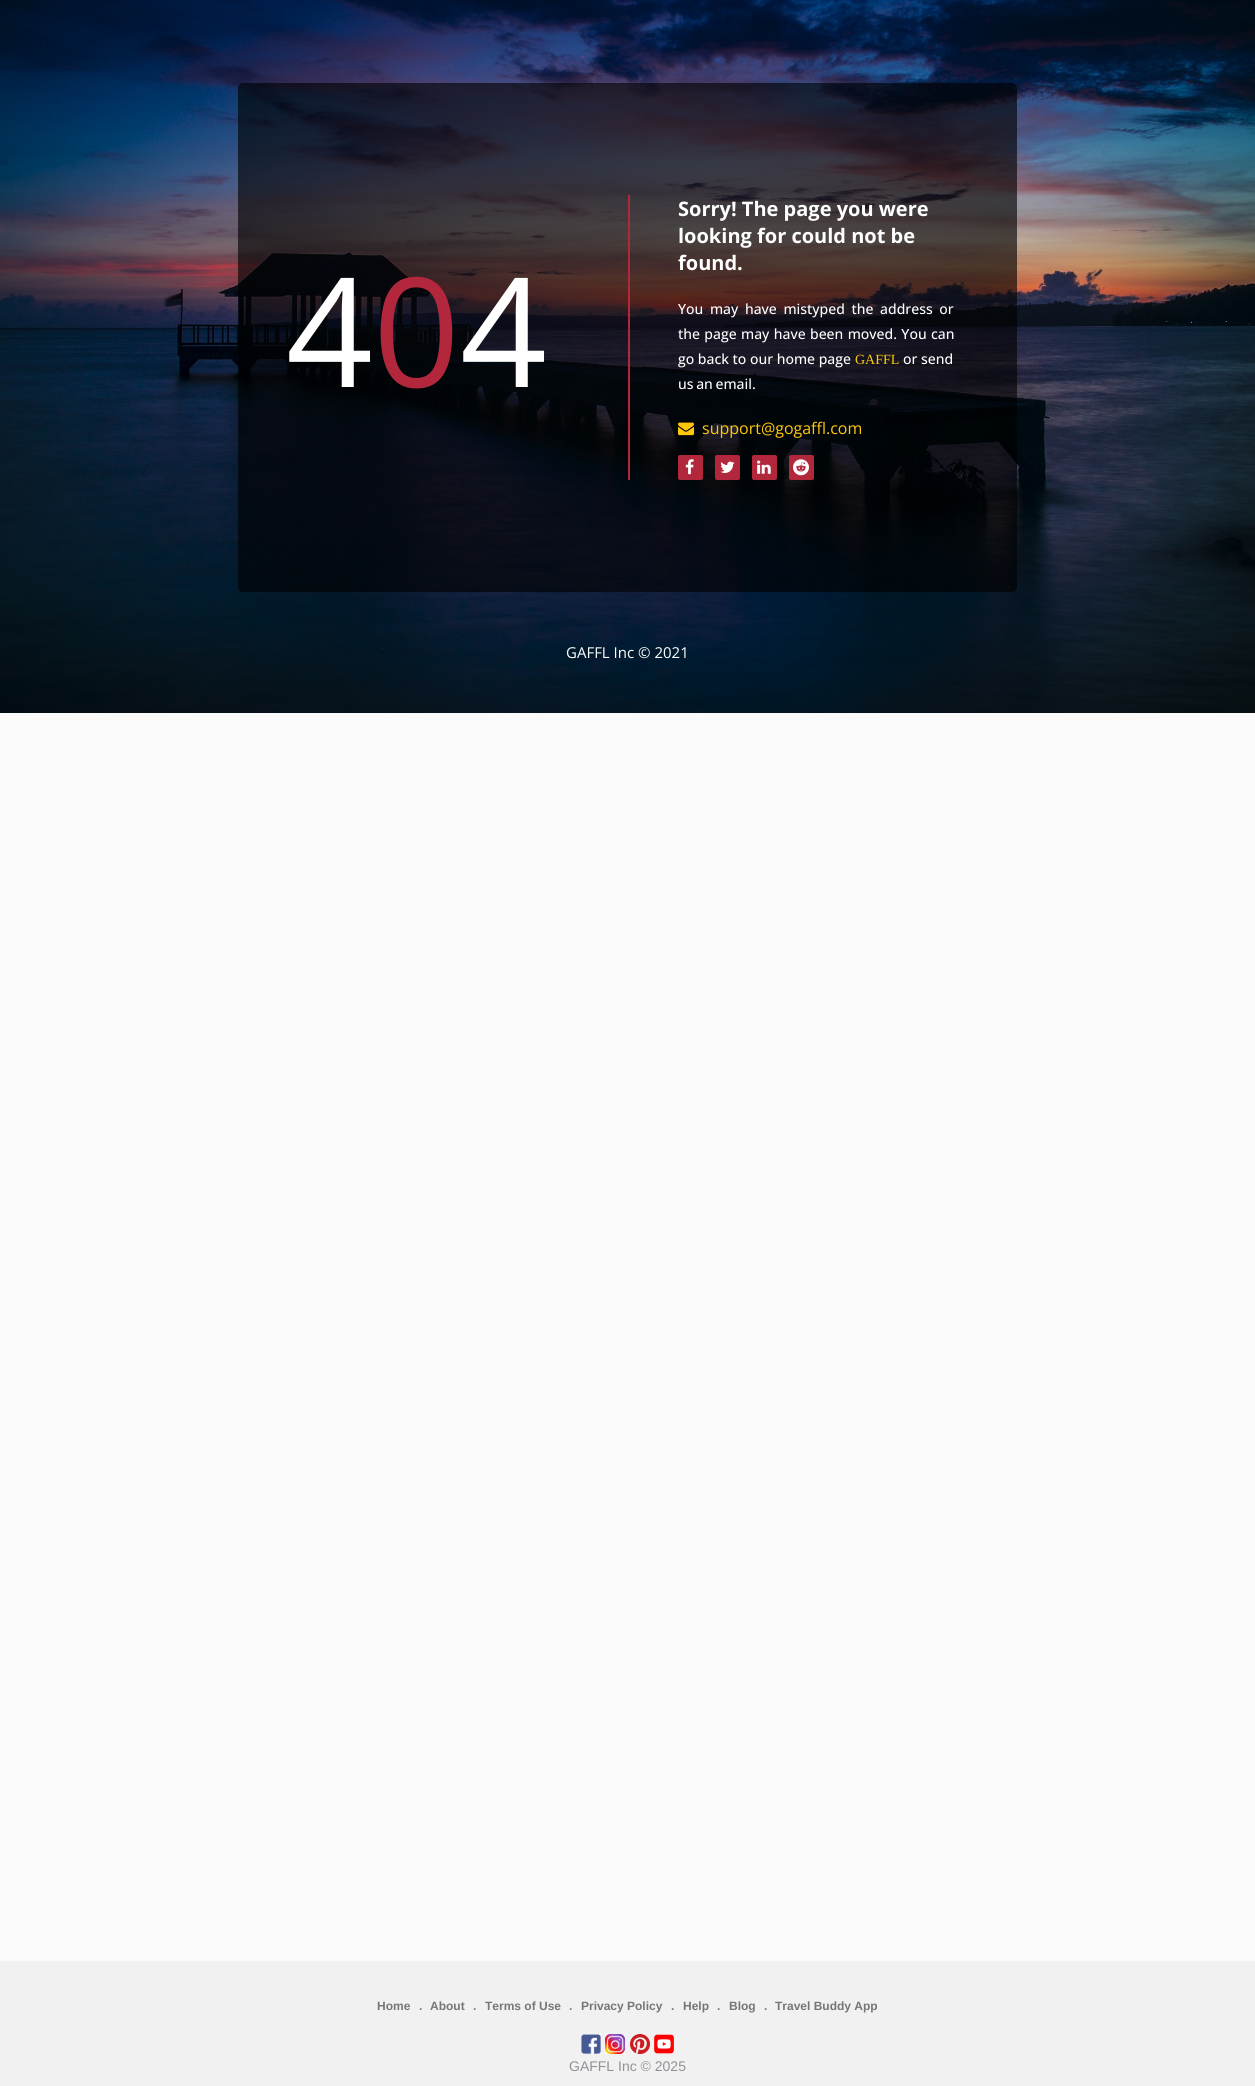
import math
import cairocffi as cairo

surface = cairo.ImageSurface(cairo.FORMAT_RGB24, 1255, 2086)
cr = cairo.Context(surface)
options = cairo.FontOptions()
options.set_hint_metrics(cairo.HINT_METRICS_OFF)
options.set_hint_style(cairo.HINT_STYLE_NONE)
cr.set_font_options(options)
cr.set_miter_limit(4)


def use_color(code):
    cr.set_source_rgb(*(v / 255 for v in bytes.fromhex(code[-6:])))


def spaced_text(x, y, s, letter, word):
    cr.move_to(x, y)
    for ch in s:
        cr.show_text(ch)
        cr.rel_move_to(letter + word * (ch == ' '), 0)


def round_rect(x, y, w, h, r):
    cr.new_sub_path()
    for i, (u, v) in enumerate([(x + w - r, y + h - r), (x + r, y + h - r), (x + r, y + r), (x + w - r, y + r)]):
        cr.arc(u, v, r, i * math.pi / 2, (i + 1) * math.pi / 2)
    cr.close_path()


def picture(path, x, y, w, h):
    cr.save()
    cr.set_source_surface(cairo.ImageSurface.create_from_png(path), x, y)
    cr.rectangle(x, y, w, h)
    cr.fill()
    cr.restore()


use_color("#fafafa")
cr.paint()
picture("img1.png", 0, 0, 1255, 713)
cr.set_source_rgba(0, 0, 0, 0.62)
round_rect(238, 83, 779, 509, 5)
cr.fill()
cr.select_font_face("Open Sans")
cr.set_font_size(152)
use_color("#ffffff")
cr.move_to(286, 387)
cr.show_text("4")
use_color("#b3273d")
cr.move_to(373, 387)
cr.show_text("0")
use_color("#ffffff")
cr.move_to(460, 387)
cr.show_text("4")
use_color("#b3273d")
cr.rectangle(628, 195, 2, 285)
cr.fill()
cr.select_font_face("Open Sans", cairo.FONT_SLANT_NORMAL, cairo.FONT_WEIGHT_BOLD)
cr.set_font_size(20)
use_color("#ffffff")
cr.move_to(678, 216)
cr.show_text("Sorry! The page you were")
cr.move_to(678, 243)
cr.show_text("looking for could not be")
cr.move_to(678, 270)
cr.show_text("found.")
cr.select_font_face("Open Sans Medium")
cr.set_font_size(14)
spaced_text(678, 314, "You may have mistyped the address or", 0, 3)
spaced_text(678, 339, "the page may have been moved. You can", 0, 0.75)
cr.move_to(678, 364)
cr.show_text("go back to our home page")
cr.select_font_face("Liberation Serif")
use_color("#ffc70b")
cr.move_to(855, 364)
cr.show_text("GAFFL")
cr.select_font_face("Open Sans Medium")
use_color("#ffffff")
cr.move_to(903, 364)
cr.show_text("or send")
spaced_text(678, 389, "us an email.", 0, -1)
picture("img2.png", 678, 422, 16, 14)
cr.select_font_face("Open Sans")
cr.set_font_size(16)
use_color("#ffc70b")
cr.move_to(702, 434)
cr.show_text("support@gogaffl.com")
use_color("#b3273d")
round_rect(678, 455, 25, 25, 2)
cr.fill()
picture("img3.png", 685, 459, 9, 16)
round_rect(715, 455, 25, 25, 2)
cr.fill()
picture("img4.png", 720, 461, 15, 12)
round_rect(752, 455, 25, 25, 2)
cr.fill()
picture("img5.png", 757, 460, 14, 14)
round_rect(789, 455, 25, 25, 2)
cr.fill()
picture("img6.png", 793, 459, 16, 17)
cr.set_font_size(15)
use_color("#ffffff")
cr.move_to(566, 658)
cr.show_text("GAFFL Inc © 2021")
use_color("#f1f1f1")
cr.rectangle(0, 1961, 1255, 125)
cr.fill()
cr.select_font_face("Liberation Sans", cairo.FONT_SLANT_NORMAL, cairo.FONT_WEIGHT_BOLD)
cr.set_font_size(12)
use_color("#767676")
cr.move_to(377, 2010)
cr.show_text("Home")
cr.move_to(419, 2010)
cr.show_text(".")
cr.move_to(430, 2010)
cr.show_text("About")
cr.move_to(473, 2010)
cr.show_text(".")
cr.move_to(485, 2010)
cr.show_text("Terms of Use")
cr.move_to(569, 2010)
cr.show_text(".")
cr.move_to(581, 2010)
cr.show_text("Privacy Policy")
cr.move_to(671, 2010)
cr.show_text(".")
cr.move_to(683, 2010)
cr.show_text("Help")
cr.move_to(717, 2010)
cr.show_text(".")
cr.move_to(729, 2010)
cr.show_text("Blog")
cr.move_to(764, 2010)
cr.show_text(".")
cr.move_to(775, 2010)
cr.show_text("Travel Buddy App")
picture("img7.png", 581, 2034, 20, 20)
picture("img8.png", 605, 2034, 20, 20)
picture("img9.png", 630, 2034, 20, 20)
picture("img10.png", 654, 2034, 20, 20)
cr.select_font_face("Liberation Sans")
cr.set_font_size(14)
use_color("#8f9296")
cr.move_to(569, 2071)
cr.show_text("GAFFL Inc © 2025")
surface.write_to_png("result.png")
